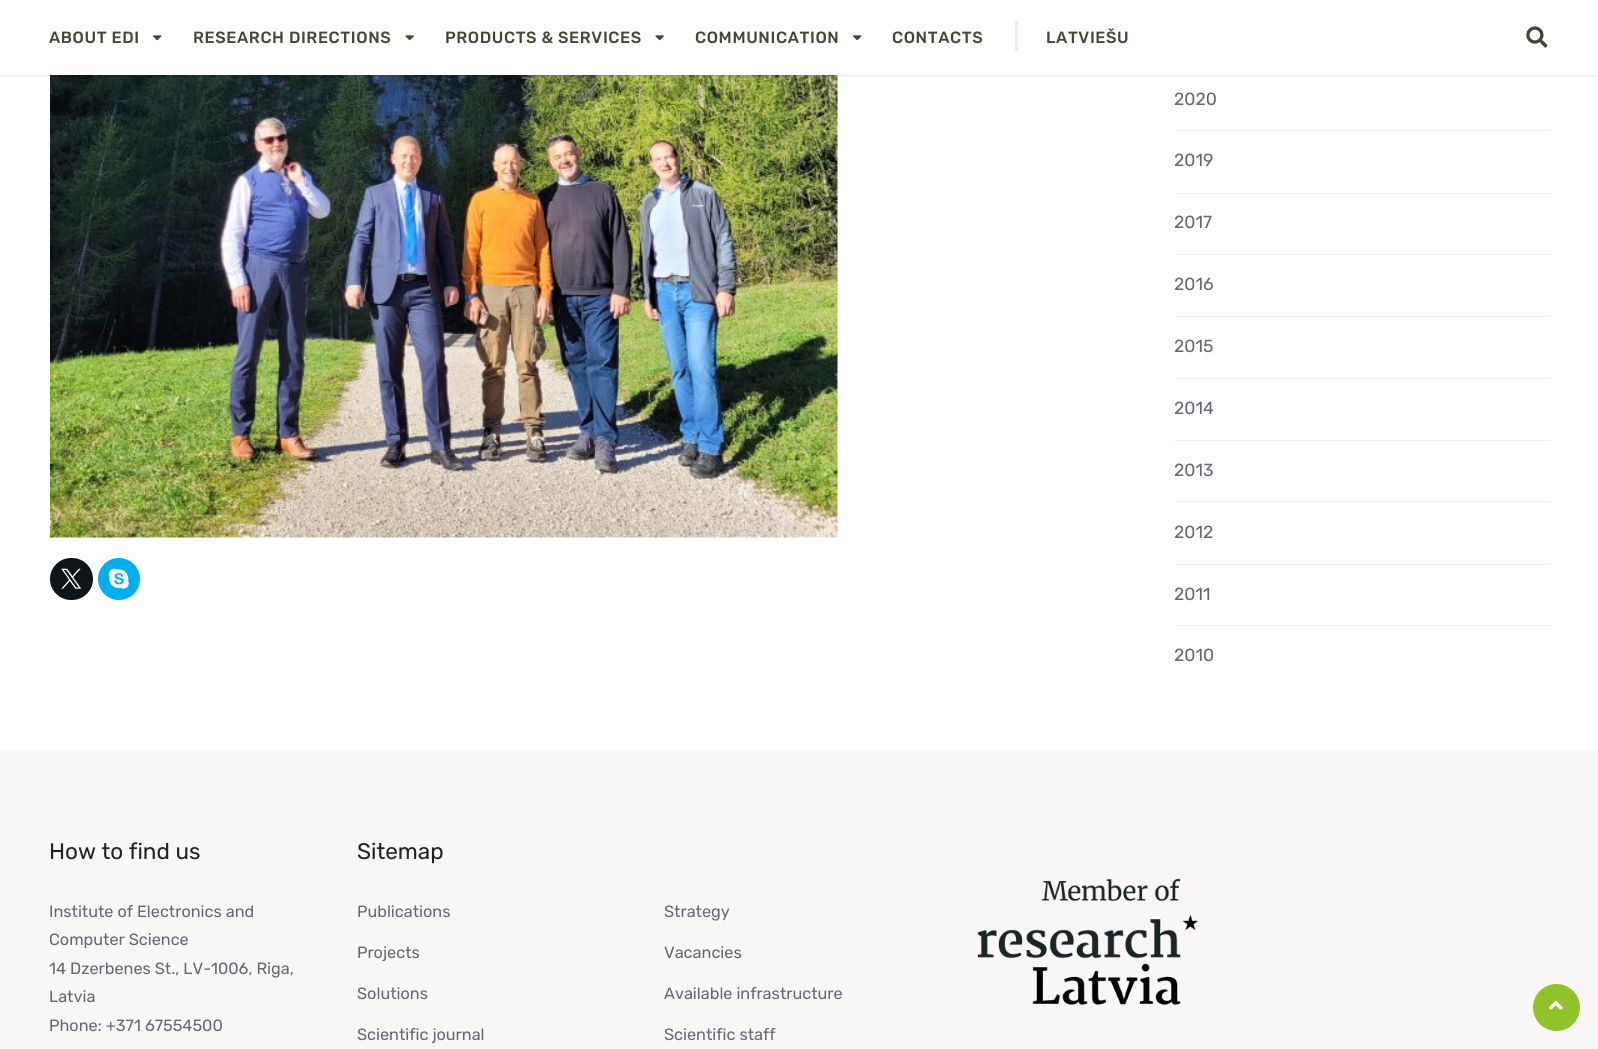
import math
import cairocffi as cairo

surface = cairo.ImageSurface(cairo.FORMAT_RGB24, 1598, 1049)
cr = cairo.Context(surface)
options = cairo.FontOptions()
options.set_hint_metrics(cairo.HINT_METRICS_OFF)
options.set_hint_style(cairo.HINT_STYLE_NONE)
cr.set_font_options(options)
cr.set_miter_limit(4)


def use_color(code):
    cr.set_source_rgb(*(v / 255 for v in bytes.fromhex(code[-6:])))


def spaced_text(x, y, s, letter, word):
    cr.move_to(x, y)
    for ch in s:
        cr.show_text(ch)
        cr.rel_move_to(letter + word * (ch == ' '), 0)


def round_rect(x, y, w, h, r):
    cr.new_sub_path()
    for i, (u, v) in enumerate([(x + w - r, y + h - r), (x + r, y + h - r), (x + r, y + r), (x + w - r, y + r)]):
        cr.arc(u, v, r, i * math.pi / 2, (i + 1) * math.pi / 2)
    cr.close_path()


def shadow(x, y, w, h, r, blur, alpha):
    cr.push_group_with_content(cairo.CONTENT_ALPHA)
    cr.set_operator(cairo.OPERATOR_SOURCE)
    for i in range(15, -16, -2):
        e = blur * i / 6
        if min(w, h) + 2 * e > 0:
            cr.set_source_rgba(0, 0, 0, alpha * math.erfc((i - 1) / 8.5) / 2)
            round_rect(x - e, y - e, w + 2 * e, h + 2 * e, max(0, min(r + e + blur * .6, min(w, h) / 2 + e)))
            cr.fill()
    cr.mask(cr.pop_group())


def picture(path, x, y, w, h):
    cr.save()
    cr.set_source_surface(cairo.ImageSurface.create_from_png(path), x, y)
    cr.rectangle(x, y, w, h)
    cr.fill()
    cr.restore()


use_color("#ffffff")
cr.paint()
picture("img4.png", 50, 75, 788, 463)
use_color("#000000")
shadow(0, 1, 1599, 75, 0, 1, 0.09)
use_color("#ffffff")
cr.rectangle(0, 0, 1598, 75)
cr.fill()
cr.select_font_face("Rubik Medium")
cr.set_font_size(16.25)
use_color("#484537")
spaced_text(49, 43, "ABOUT EDI", 0.6, 0)
picture("img1.png", 153, 35, 9, 6)
spaced_text(193, 43, "RESEARCH DIRECTIONS", 0.6, 0)
picture("img2.png", 405, 35, 9, 6)
spaced_text(445, 43, "PRODUCTS & SERVICES", 0.6, 0)
picture("img2.png", 655, 35, 9, 6)
spaced_text(695, 43, "COMMUNICATION", 0.6, 0)
picture("img1.png", 853, 35, 9, 6)
spaced_text(892, 43, "CONTACTS", 0.6, 0)
use_color("#ececec")
cr.rectangle(1015, 21, 3, 30)
cr.fill()
use_color("#484537")
spaced_text(1046, 43, "LATVIEŠU", 0.6, 0)
picture("img3.png", 1526, 26, 22, 22)
use_color("#0f1419")
round_rect(50, 558, 43, 42, 21)
cr.fill()
picture("img5.png", 61, 568, 21, 21)
use_color("#00aff0")
cr.arc(119, 579, 21, 0, 2 * math.pi)
cr.fill()
picture("img6.png", 108, 568, 21, 21)
use_color("#f0f0f0")
cr.rectangle(1175, 130, 375, 1)
cr.fill()
cr.select_font_face("Rubik")
cr.set_font_size(17.5)
use_color("#666677")
cr.move_to(1174, 105)
cr.show_text("2020")
use_color("#f0f0f0")
cr.rectangle(1175, 193, 375, 1)
cr.fill()
use_color("#666677")
cr.move_to(1174, 166)
cr.show_text("2019")
use_color("#f0f0f0")
cr.rectangle(1175, 254, 375, 1)
cr.fill()
use_color("#666677")
cr.move_to(1174, 228)
cr.show_text("2017")
use_color("#f0f0f0")
cr.rectangle(1175, 316, 375, 1)
cr.fill()
use_color("#666677")
cr.move_to(1174, 290)
cr.show_text("2016")
use_color("#f0f0f0")
cr.rectangle(1175, 378, 375, 1)
cr.fill()
use_color("#666677")
cr.move_to(1174, 352)
cr.show_text("2015")
use_color("#f0f0f0")
cr.rectangle(1175, 440, 375, 1)
cr.fill()
use_color("#666677")
cr.move_to(1174, 414)
cr.show_text("2014")
use_color("#f0f0f0")
cr.rectangle(1175, 501, 375, 1)
cr.fill()
use_color("#666677")
cr.move_to(1174, 476)
cr.show_text("2013")
use_color("#f0f0f0")
cr.rectangle(1175, 564, 375, 1)
cr.fill()
use_color("#666677")
cr.move_to(1174, 538)
cr.show_text("2012")
use_color("#f0f0f0")
cr.rectangle(1175, 625, 375, 1)
cr.fill()
use_color("#666677")
cr.move_to(1174, 600)
cr.show_text("2011")
cr.move_to(1174, 661)
cr.show_text("2010")
use_color("#f8f7f6")
cr.rectangle(0, 750, 1598, 299)
cr.fill()
cr.set_font_size(22.5)
use_color("#222222")
cr.move_to(49, 859)
cr.show_text("How to find us")
cr.set_font_size(16.25)
use_color("#666677")
cr.move_to(49, 917)
cr.show_text("Institute of Electronics and")
cr.move_to(49, 945)
cr.show_text("Computer Science")
cr.move_to(49, 974)
cr.show_text("14 Dzerbenes St., LV-1006, Riga,")
cr.move_to(49, 1002)
cr.show_text("Latvia")
cr.move_to(49, 1031)
cr.show_text("Phone: +371 67554500")
cr.set_font_size(22.5)
use_color("#222222")
cr.move_to(357, 859)
cr.show_text("Sitemap")
cr.set_font_size(16.25)
use_color("#666677")
cr.move_to(357, 917)
cr.show_text("Publications")
cr.move_to(357, 958)
cr.show_text("Projects")
cr.move_to(357, 999)
cr.show_text("Solutions")
cr.move_to(357, 1040)
cr.show_text("Scientific journal")
cr.move_to(664, 917)
cr.show_text("Strategy")
cr.move_to(664, 958)
cr.show_text("Vacancies")
cr.move_to(664, 999)
cr.show_text("Available infrastructure")
cr.move_to(664, 1040)
cr.show_text("Scientific staff")
picture("img7.png", 977, 878, 221, 127)
use_color("#90c229")
cr.arc(1556.5, 1007.5, 23.5, 0, 2 * math.pi)
cr.fill()
picture("img8.png", 1548, 1000, 15, 10)
surface.write_to_png("result.png")
